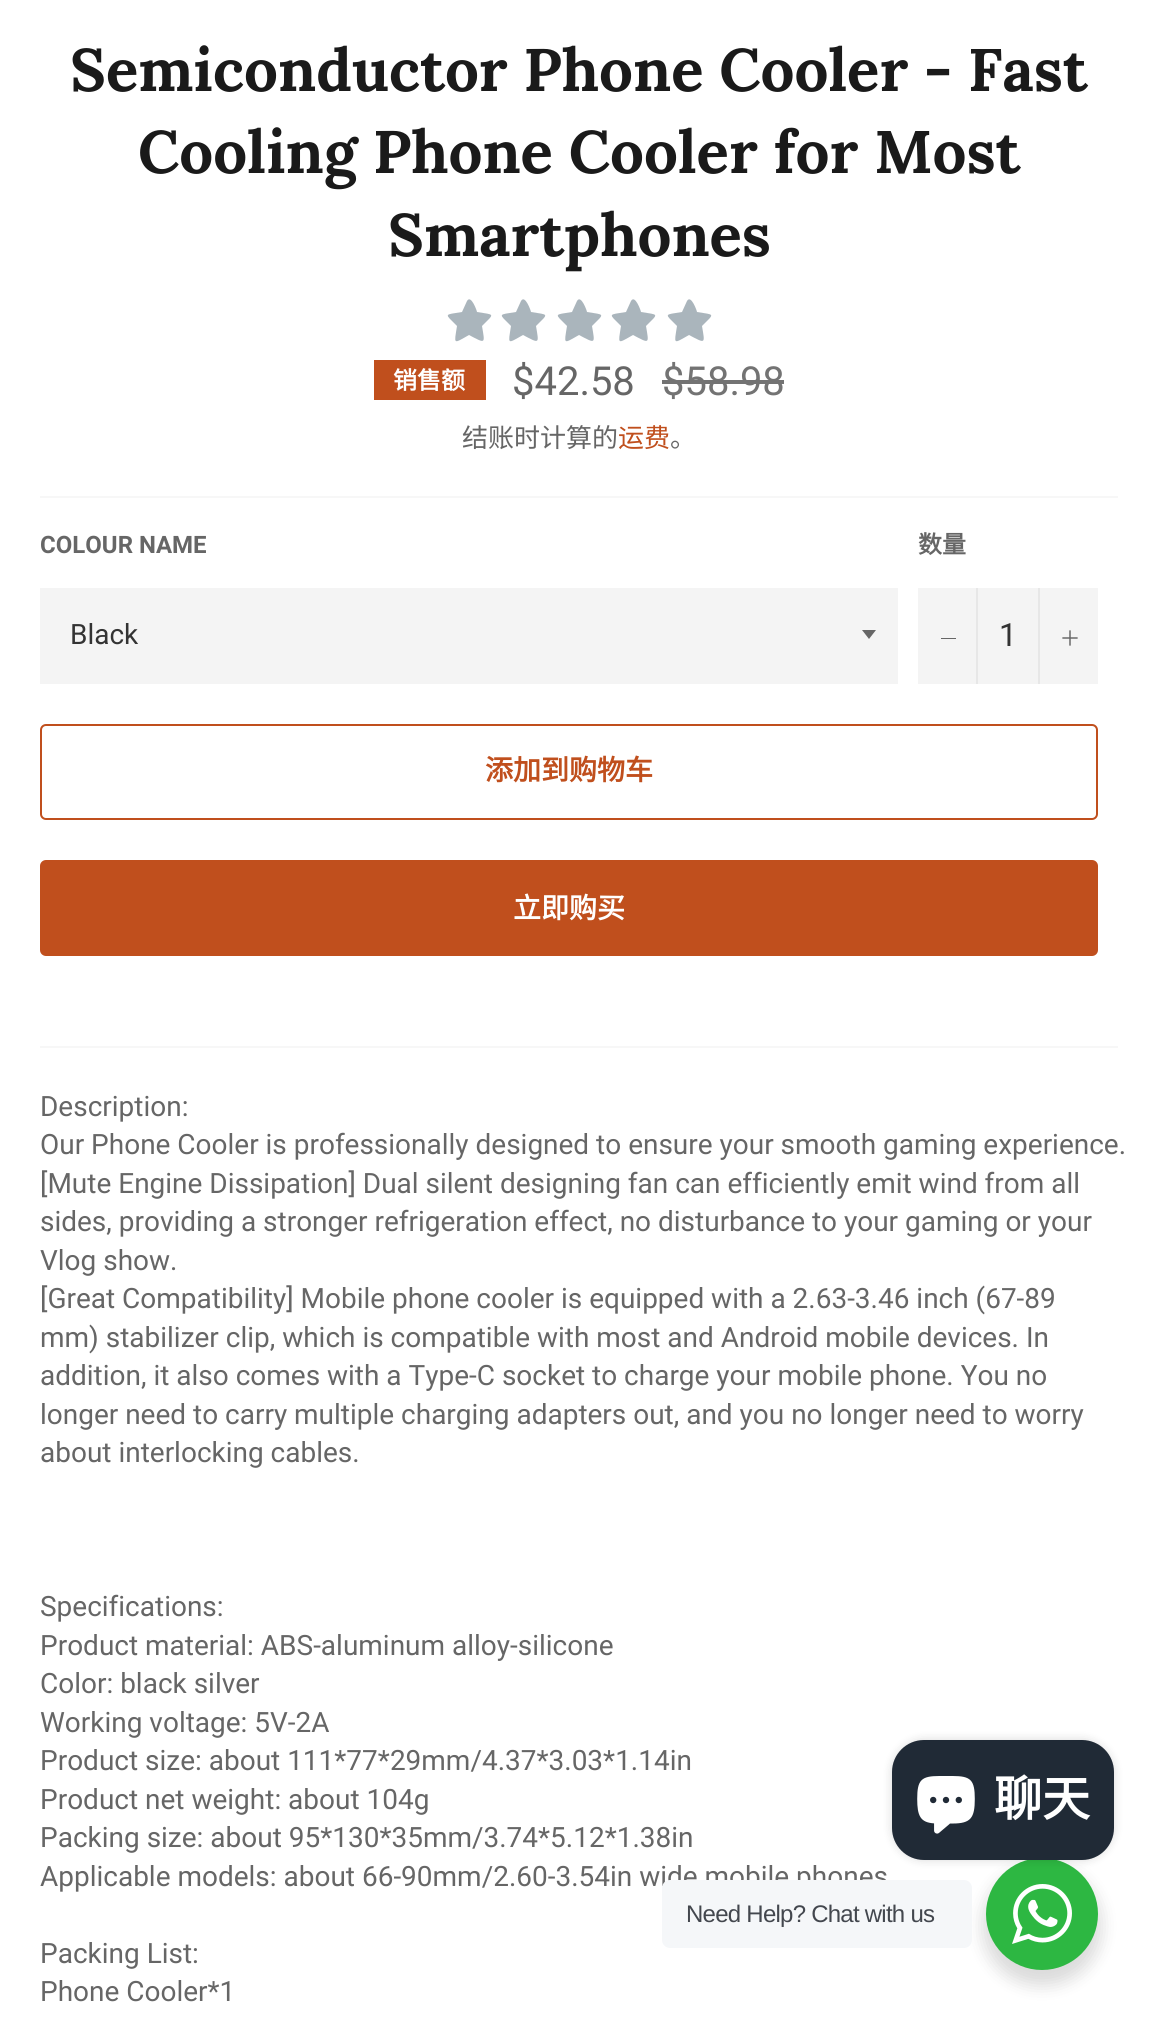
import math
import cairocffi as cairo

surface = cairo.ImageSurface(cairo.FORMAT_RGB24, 1157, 2030)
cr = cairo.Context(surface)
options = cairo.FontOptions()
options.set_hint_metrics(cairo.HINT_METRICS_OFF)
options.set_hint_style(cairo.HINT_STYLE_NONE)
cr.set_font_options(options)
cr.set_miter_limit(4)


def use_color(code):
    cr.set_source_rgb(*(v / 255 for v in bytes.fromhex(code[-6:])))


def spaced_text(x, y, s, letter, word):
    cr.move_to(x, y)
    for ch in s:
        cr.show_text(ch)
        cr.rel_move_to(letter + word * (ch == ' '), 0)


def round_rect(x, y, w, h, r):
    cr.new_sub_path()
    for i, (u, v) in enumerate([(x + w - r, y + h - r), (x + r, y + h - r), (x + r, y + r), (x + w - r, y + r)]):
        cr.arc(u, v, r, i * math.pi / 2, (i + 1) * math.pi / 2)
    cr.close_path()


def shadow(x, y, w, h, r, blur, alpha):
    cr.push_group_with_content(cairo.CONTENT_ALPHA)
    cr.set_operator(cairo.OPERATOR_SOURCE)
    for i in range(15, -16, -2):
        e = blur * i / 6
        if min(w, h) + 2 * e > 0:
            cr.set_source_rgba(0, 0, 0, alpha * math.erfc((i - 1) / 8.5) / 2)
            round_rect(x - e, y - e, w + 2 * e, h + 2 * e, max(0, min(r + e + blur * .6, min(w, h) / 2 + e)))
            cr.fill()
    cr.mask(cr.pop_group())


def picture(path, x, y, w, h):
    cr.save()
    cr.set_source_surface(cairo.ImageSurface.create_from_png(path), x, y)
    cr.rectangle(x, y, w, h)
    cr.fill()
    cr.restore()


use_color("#ffffff")
cr.paint()
cr.select_font_face("Lora", cairo.FONT_SLANT_NORMAL, cairo.FONT_WEIGHT_BOLD)
cr.set_font_size(60)
use_color("#1a1a1a")
cr.move_to(70, 91)
cr.show_text("Semiconductor Phone Cooler - Fast")
cr.move_to(138, 173)
cr.show_text("Cooling Phone Cooler for Most")
cr.move_to(388, 256)
cr.show_text("Smartphones")
use_color("#aab5bc")
cr.new_path()
cr.move_to(467, 301)
cr.curve_to(471, 294, 477, 311, 477, 312)
cr.curve_to(495, 315, 495, 313, 482, 326)
cr.curve_to(485, 344, 486, 344, 469, 335)
cr.curve_to(453, 344, 454, 345, 457, 326)
cr.curve_to(444, 313, 444, 315, 462, 312)
cr.close_path()
cr.fill()
cr.new_path()
cr.move_to(521, 301)
cr.curve_to(525, 294, 531, 311, 531, 312)
cr.curve_to(549, 315, 549, 313, 536, 326)
cr.curve_to(539, 344, 540, 344, 523, 335)
cr.curve_to(507, 344, 508, 345, 511, 326)
cr.curve_to(498, 313, 498, 315, 516, 312)
cr.close_path()
cr.fill()
cr.new_path()
cr.move_to(577, 301)
cr.curve_to(581, 294, 587, 311, 587, 312)
cr.curve_to(605, 315, 605, 313, 592, 326)
cr.curve_to(595, 344, 596, 344, 579, 335)
cr.curve_to(563, 344, 564, 345, 567, 326)
cr.curve_to(554, 313, 554, 315, 572, 312)
cr.close_path()
cr.fill()
cr.new_path()
cr.move_to(631, 301)
cr.curve_to(635, 294, 641, 311, 641, 312)
cr.curve_to(659, 315, 659, 313, 646, 326)
cr.curve_to(649, 344, 650, 344, 633, 335)
cr.curve_to(617, 344, 618, 345, 621, 326)
cr.curve_to(608, 313, 608, 315, 626, 312)
cr.close_path()
cr.fill()
cr.new_path()
cr.move_to(687, 301)
cr.curve_to(691, 294, 697, 311, 697, 312)
cr.curve_to(715, 315, 715, 313, 702, 326)
cr.curve_to(705, 344, 706, 344, 689, 335)
cr.curve_to(673, 344, 674, 345, 677, 326)
cr.curve_to(664, 313, 664, 315, 682, 312)
cr.close_path()
cr.fill()
use_color("#c04f1d")
cr.rectangle(374, 360, 112, 40)
cr.fill()
cr.select_font_face("Noto Sans CJK SC", cairo.FONT_SLANT_NORMAL, cairo.FONT_WEIGHT_BOLD)
cr.set_font_size(24)
use_color("#ffffff")
cr.move_to(393, 389)
cr.show_text("销售额")
cr.select_font_face("Roboto")
cr.set_font_size(40)
use_color("#666666")
cr.move_to(512, 395)
cr.show_text("$42.58")
use_color("#737373")
cr.move_to(662, 395)
cr.show_text("$58.98")
cr.rectangle(662, 380, 122, 4)
cr.fill()
cr.select_font_face("Noto Sans CJK SC")
cr.set_font_size(26)
use_color("#666666")
cr.move_to(462, 447)
cr.show_text("结账时计算的")
use_color("#c04f1d")
cr.move_to(618, 447)
cr.show_text("运费")
use_color("#666666")
cr.move_to(670, 447)
cr.show_text("。")
use_color("#f7f7f7")
cr.rectangle(40, 496, 1078, 2)
cr.fill()
cr.select_font_face("Roboto", cairo.FONT_SLANT_NORMAL, cairo.FONT_WEIGHT_BOLD)
cr.set_font_size(24)
use_color("#666666")
cr.move_to(40, 553)
cr.show_text("COLOUR NAME")
use_color("#f4f4f4")
cr.rectangle(40, 588, 858, 96)
cr.fill()
use_color("#666666")
cr.new_path()
cr.move_to(862, 630)
cr.line_to(869, 639)
cr.line_to(876, 630)
cr.close_path()
cr.fill()
cr.select_font_face("Roboto")
cr.set_font_size(28)
use_color("#333333")
cr.move_to(70, 644)
cr.show_text("Black")
cr.select_font_face("Noto Sans CJK SC", cairo.FONT_SLANT_NORMAL, cairo.FONT_WEIGHT_BOLD)
cr.set_font_size(24)
use_color("#666666")
cr.move_to(918, 553)
cr.show_text("数量")
use_color("#f4f4f4")
cr.rectangle(918, 588, 180, 96)
cr.fill()
use_color("#e7e7e7")
cr.rectangle(976, 588, 2, 96)
cr.fill()
use_color("#666666")
cr.rectangle(941, 638, 15, 1)
cr.fill()
cr.select_font_face("Roboto")
cr.set_font_size(32)
use_color("#333333")
cr.move_to(999, 646)
cr.show_text("1")
use_color("#e7e7e7")
cr.rectangle(1038, 588, 2, 96)
cr.fill()
picture("img1.png", 1062, 630, 16, 16)
round_rect(41, 725, 1056, 94, 5)
use_color("#c04f1d")
cr.stroke()
cr.select_font_face("Noto Sans CJK SC", cairo.FONT_SLANT_NORMAL, cairo.FONT_WEIGHT_BOLD)
cr.set_font_size(28)
cr.move_to(485, 780)
cr.show_text("添加到购物车")
round_rect(40, 860, 1058, 96, 6)
cr.fill()
use_color("#ffffff")
cr.move_to(513, 918)
cr.show_text("立即购买")
use_color("#f7f7f7")
cr.rectangle(40, 1046, 1078, 2)
cr.fill()
cr.select_font_face("Roboto")
use_color("#666666")
cr.move_to(40, 1116)
cr.show_text("Description:")
cr.move_to(40, 1154)
cr.show_text("Our Phone Cooler is professionally designed to ensure your smooth gaming experience.")
cr.move_to(40, 1193)
cr.show_text("[Mute Engine Dissipation] Dual silent designing fan can efficiently emit wind from all")
cr.move_to(40, 1231)
cr.show_text("sides, providing a stronger refrigeration effect, no disturbance to your gaming or your")
cr.move_to(40, 1270)
cr.show_text("Vlog show.")
cr.move_to(40, 1308)
cr.show_text("[Great Compatibility] Mobile phone cooler is equipped with a 2.63-3.46 inch (67-89")
cr.move_to(40, 1347)
cr.show_text("mm) stabilizer clip, which is compatible with most and Android mobile devices. In")
cr.move_to(40, 1385)
cr.show_text("addition, it also comes with a Type-C socket to charge your mobile phone. You no")
cr.move_to(40, 1424)
cr.show_text("longer need to carry multiple charging adapters out, and you no longer need to worry")
cr.move_to(40, 1462)
cr.show_text("about interlocking cables.")
cr.move_to(40, 1616)
cr.show_text("Specifications:")
cr.move_to(40, 1655)
cr.show_text("Product material: ABS-aluminum alloy-silicone")
cr.move_to(40, 1693)
cr.show_text("Color: black silver")
cr.move_to(40, 1732)
cr.show_text("Working voltage: 5V-2A")
cr.move_to(40, 1770)
cr.show_text("Product size: about 111*77*29mm/4.37*3.03*1.14in")
cr.move_to(40, 1809)
cr.show_text("Product net weight: about 104g")
cr.move_to(40, 1847)
cr.show_text("Packing size: about 95*130*35mm/3.74*5.12*1.38in")
cr.move_to(40, 1886)
cr.show_text("Applicable models: about 66-90mm/2.60-3.54in wide mobile phones")
cr.move_to(40, 1963)
cr.show_text("Packing List:")
cr.move_to(40, 2001)
cr.show_text("Phone Cooler*1")
use_color("#000000")
shadow(982, 1866, 120, 120, 60, 8, 0.14)
use_color("#2db742")
cr.arc(1042, 1914, 56, 0, 2 * math.pi)
cr.fill()
use_color("#000000")
shadow(892, 1740, 222, 120, 32, 5, 0.15)
use_color("#202a36")
round_rect(892, 1740, 222, 120, 32)
cr.fill()
picture("img2.png", 917, 1776, 58, 58)
cr.select_font_face("Noto Sans CJK SC", cairo.FONT_SLANT_NORMAL, cairo.FONT_WEIGHT_BOLD)
cr.set_font_size(48)
use_color("#ffffff")
cr.move_to(994, 1816)
cr.show_text("聊天")
use_color("#f5f7f9")
round_rect(662, 1880, 310, 68, 8)
cr.fill()
cr.select_font_face("Liberation Sans")
cr.set_font_size(24)
use_color("#43474e")
spaced_text(686, 1922, "Need Help? Chat with us", -0.75, 0)
picture("img3.png", 1012, 1884, 60, 60)
surface.write_to_png("result.png")
